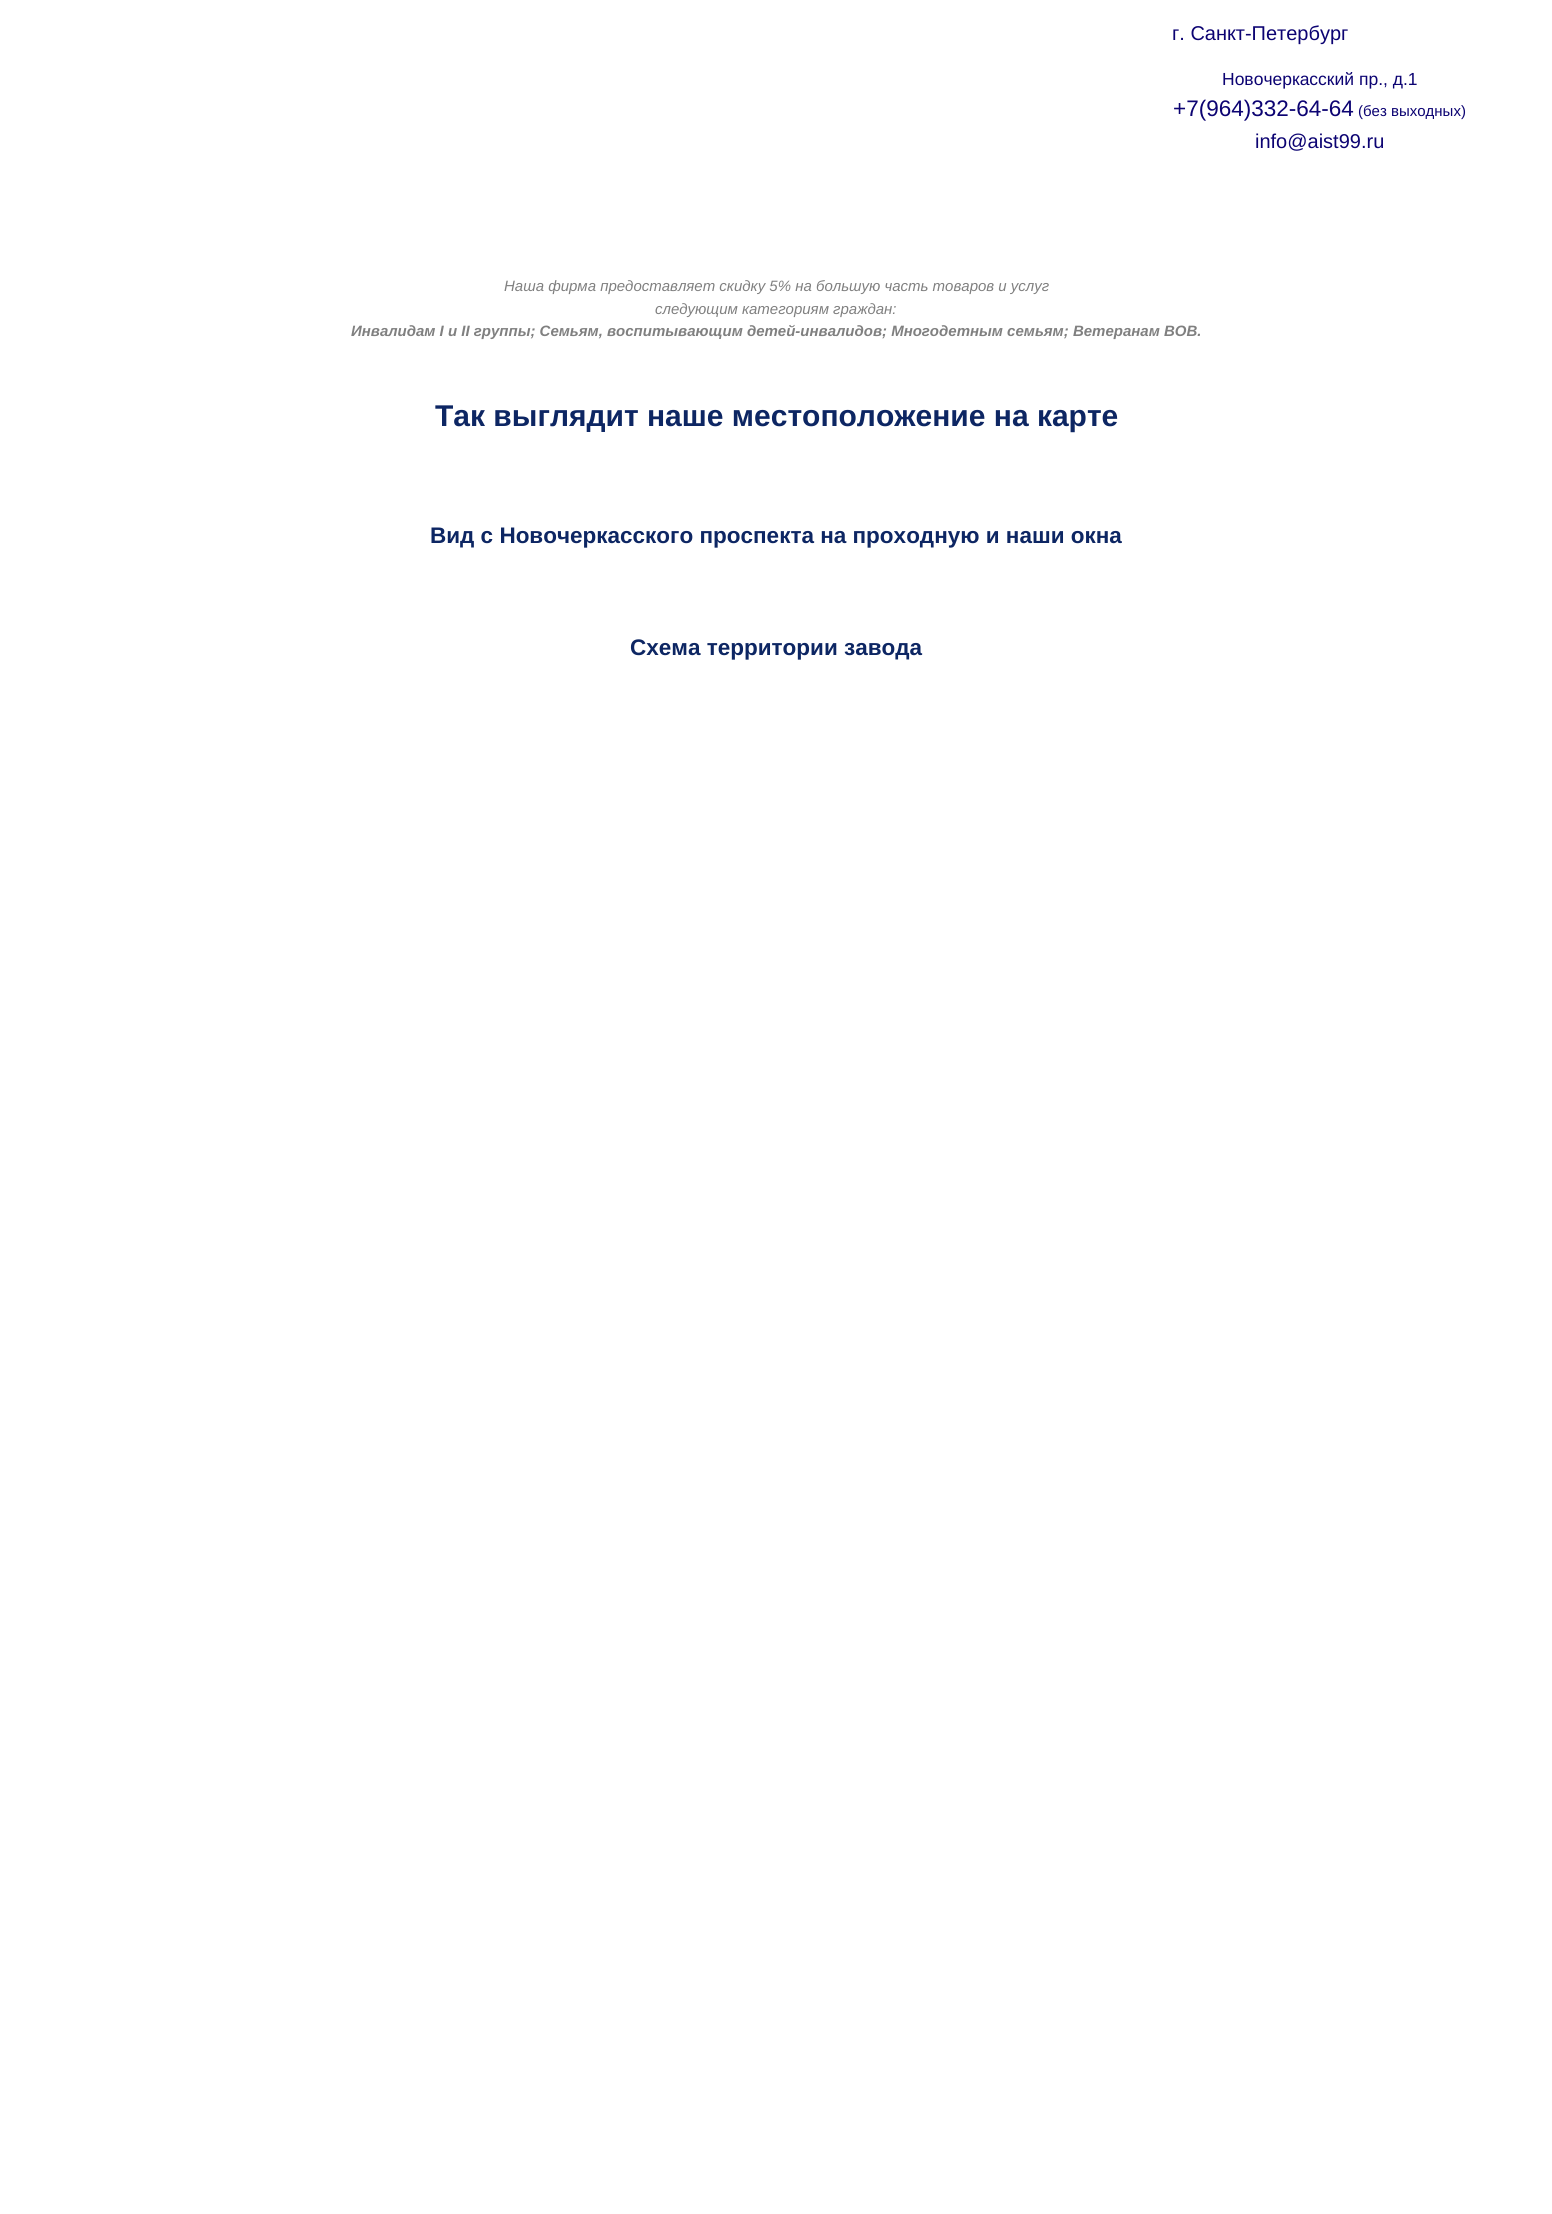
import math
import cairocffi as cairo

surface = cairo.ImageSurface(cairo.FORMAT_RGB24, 1552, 2214)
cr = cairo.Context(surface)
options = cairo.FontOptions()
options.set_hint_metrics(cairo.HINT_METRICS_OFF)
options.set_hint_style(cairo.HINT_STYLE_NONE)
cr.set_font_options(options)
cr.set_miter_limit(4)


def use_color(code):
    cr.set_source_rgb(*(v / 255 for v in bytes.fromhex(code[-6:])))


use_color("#ffffff")
cr.paint()
cr.select_font_face("Liberation Sans")
cr.set_font_size(20)
use_color("#0c0372")
cr.move_to(1172, 40)
cr.show_text("г. Санкт-Петербург")
cr.set_font_size(17.5)
cr.move_to(1222, 85)
cr.show_text("Новочеркасский пр., д.1")
cr.set_font_size(22.5)
cr.move_to(1173, 116)
cr.show_text("+7(964)332-64-64")
cr.set_font_size(15)
cr.move_to(1358, 116)
cr.show_text("(без выходных)")
cr.set_font_size(20)
cr.move_to(1255, 148)
cr.show_text("info@aist99.ru")
cr.select_font_face("Liberation Sans", cairo.FONT_SLANT_ITALIC)
cr.set_font_size(15)
use_color("#808080")
cr.move_to(504, 291)
cr.show_text("Наша фирма предоставляет скидку 5% на большую часть товаров и услуг")
cr.move_to(655, 314)
cr.show_text("следующим категориям граждан:")
cr.select_font_face("Liberation Sans", cairo.FONT_SLANT_ITALIC, cairo.FONT_WEIGHT_BOLD)
cr.move_to(351, 336)
cr.show_text("Инвалидам I и II группы; Семьям, воспитывающим детей-инвалидов; Многодетным семьям; Ветеранам ВОВ.")
cr.select_font_face("Liberation Sans", cairo.FONT_SLANT_NORMAL, cairo.FONT_WEIGHT_BOLD)
cr.set_font_size(30)
use_color("#0d2663")
cr.move_to(435, 426)
cr.show_text("Так выглядит наше местоположение на карте")
cr.set_font_size(22.5)
cr.move_to(430, 543)
cr.show_text("Вид с Новочеркасского проспекта на проходную и наши окна")
cr.move_to(630, 655)
cr.show_text("Схема территории завода")
surface.write_to_png("result.png")
